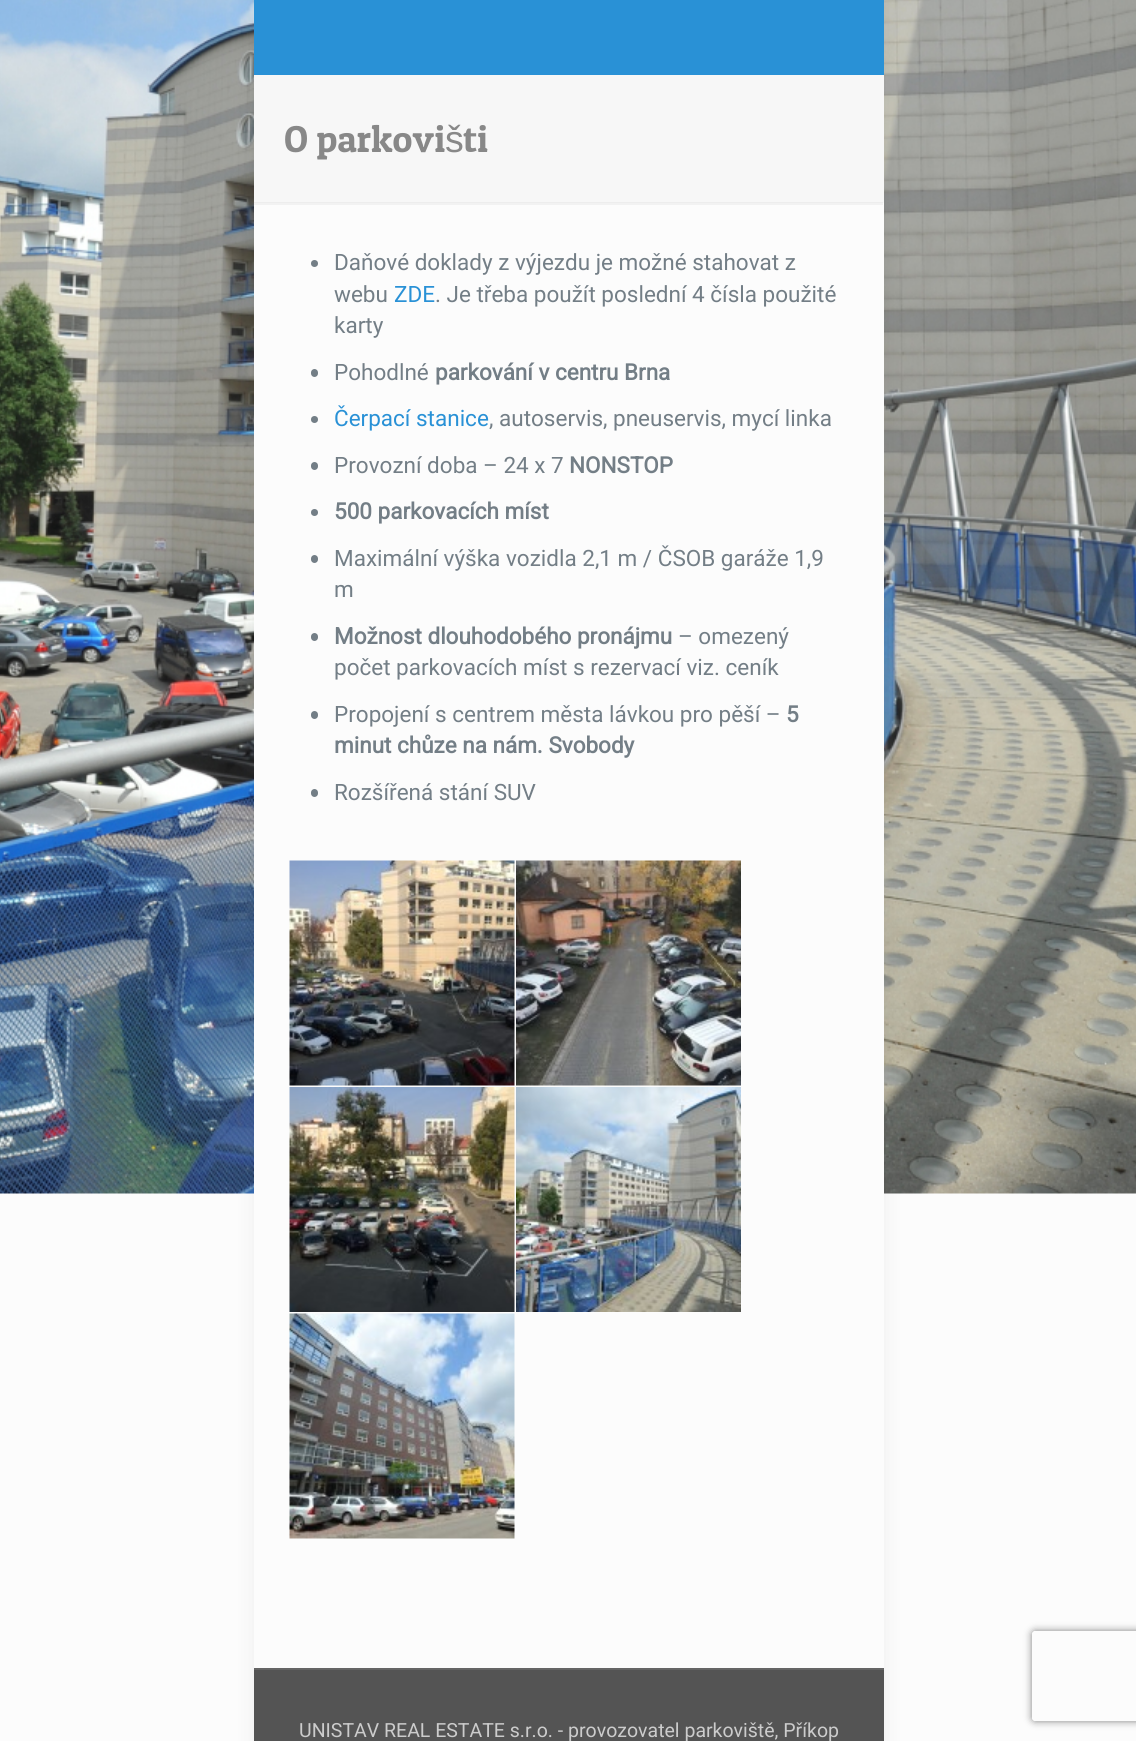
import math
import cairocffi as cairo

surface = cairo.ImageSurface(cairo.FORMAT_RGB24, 1136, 1741)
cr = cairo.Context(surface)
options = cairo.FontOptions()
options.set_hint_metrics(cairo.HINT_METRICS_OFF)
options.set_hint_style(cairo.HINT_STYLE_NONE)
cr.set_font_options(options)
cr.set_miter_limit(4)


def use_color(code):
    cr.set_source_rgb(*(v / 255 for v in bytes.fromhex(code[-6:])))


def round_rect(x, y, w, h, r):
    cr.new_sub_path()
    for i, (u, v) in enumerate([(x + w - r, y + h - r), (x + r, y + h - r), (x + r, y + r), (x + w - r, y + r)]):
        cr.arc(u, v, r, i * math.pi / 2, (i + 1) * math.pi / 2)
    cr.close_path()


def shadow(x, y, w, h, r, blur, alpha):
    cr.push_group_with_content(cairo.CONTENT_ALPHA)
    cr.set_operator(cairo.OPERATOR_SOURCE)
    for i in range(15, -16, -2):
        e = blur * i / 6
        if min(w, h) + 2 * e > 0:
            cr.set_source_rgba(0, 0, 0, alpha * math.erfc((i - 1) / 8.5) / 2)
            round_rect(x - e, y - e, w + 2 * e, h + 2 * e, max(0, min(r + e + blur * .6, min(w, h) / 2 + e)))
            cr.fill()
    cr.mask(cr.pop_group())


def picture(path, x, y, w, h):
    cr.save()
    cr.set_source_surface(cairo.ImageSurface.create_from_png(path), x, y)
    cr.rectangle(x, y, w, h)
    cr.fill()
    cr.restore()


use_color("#fcfcfc")
cr.paint()
picture("img1.png", 0, 0, 1136, 1194)
use_color("#000000")
shadow(254, -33, 630, 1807, 0, 11, 0.06)
use_color("#fcfcfc")
cr.rectangle(254, 203, 630, 1465)
cr.fill()
use_color("#2991d6")
cr.rectangle(254, 0, 630, 75)
cr.fill()
use_color("#f7f7f7")
cr.rectangle(254, 75, 630, 128)
cr.fill()
cr.select_font_face("Patua One")
cr.set_font_size(37.5)
use_color("#888888")
cr.move_to(284, 152)
cr.show_text("O parkovi")
cr.select_font_face("Liberation Sans")
cr.move_to(445, 152)
cr.show_text("š")
cr.select_font_face("Patua One")
cr.move_to(463, 152)
cr.show_text("ti")
cr.set_source_rgba(0, 0, 0, 0.04)
cr.rectangle(254, 202, 629, 3)
cr.fill()
use_color("#737e86")
cr.arc(314.5, 263.5, 3.5, 0, 2 * math.pi)
cr.fill()
cr.select_font_face("Roboto")
cr.set_font_size(22.5)
cr.move_to(334, 270)
cr.show_text("Daňové doklady z výjezdu je možné stahovat z")
cr.move_to(334, 302)
cr.show_text("webu")
use_color("#2991d6")
cr.move_to(394, 302)
cr.show_text("ZDE")
use_color("#737e86")
cr.move_to(435, 302)
cr.show_text(". Je třeba použít poslední 4 čísla použité")
cr.move_to(334, 333)
cr.show_text("karty")
round_rect(311, 369, 7, 8, 3.5)
cr.fill()
cr.move_to(334, 380)
cr.show_text("Pohodlné")
cr.select_font_face("Roboto", cairo.FONT_SLANT_NORMAL, cairo.FONT_WEIGHT_BOLD)
cr.move_to(435, 380)
cr.show_text("parkování v centru Brna")
cr.new_path()
cr.arc(314.5, 419.5, 3.5, 0, 2 * math.pi)
cr.fill()
cr.select_font_face("Roboto")
use_color("#2991d6")
cr.move_to(334, 426)
cr.show_text("Čerpací stanice")
use_color("#737e86")
cr.move_to(489, 426)
cr.show_text(", autoservis, pneuservis, mycí linka")
round_rect(311, 462, 7, 8, 3.5)
cr.fill()
cr.move_to(334, 473)
cr.show_text("Provozní doba – 24 x 7")
cr.select_font_face("Roboto", cairo.FONT_SLANT_NORMAL, cairo.FONT_WEIGHT_BOLD)
cr.move_to(569, 473)
cr.show_text("NONSTOP")
cr.new_path()
cr.arc(314.5, 512.5, 3.5, 0, 2 * math.pi)
cr.fill()
cr.move_to(334, 519)
cr.show_text("500 parkovacích míst")
round_rect(311, 555, 7, 8, 3.5)
cr.fill()
cr.select_font_face("Roboto")
cr.move_to(334, 566)
cr.show_text("Maximální výška vozidla 2,1 m / ČSOB garáže 1,9")
cr.move_to(334, 597)
cr.show_text("m")
round_rect(311, 633, 7, 8, 3.5)
cr.fill()
cr.select_font_face("Roboto", cairo.FONT_SLANT_NORMAL, cairo.FONT_WEIGHT_BOLD)
cr.move_to(334, 644)
cr.show_text("Možnost dlouhodobého pronájmu")
cr.select_font_face("Roboto")
cr.move_to(678, 644)
cr.show_text("– omezený")
cr.move_to(334, 675)
cr.show_text("počet parkovacích míst s rezervací viz. ceník")
round_rect(311, 711, 7, 8, 3.5)
cr.fill()
cr.move_to(334, 722)
cr.show_text("Propojení s centrem města lávkou pro pěší –")
cr.select_font_face("Roboto", cairo.FONT_SLANT_NORMAL, cairo.FONT_WEIGHT_BOLD)
cr.move_to(786, 722)
cr.show_text("5")
cr.move_to(334, 753)
cr.show_text("minut chůze na nám. Svobody")
round_rect(311, 789, 7, 8, 3.5)
cr.fill()
cr.select_font_face("Roboto")
cr.move_to(334, 800)
cr.show_text("Rozšířená stání SUV")
picture("img2.png", 289, 860, 226, 226)
picture("img3.png", 516, 860, 225, 226)
picture("img4.png", 289, 1087, 226, 225)
picture("img5.png", 516, 1087, 225, 225)
picture("img6.png", 289, 1313, 226, 226)
use_color("#545454")
cr.rectangle(254, 1670, 630, 71)
cr.fill()
use_color("#656565")
cr.rectangle(254, 1668, 630, 2)
cr.fill()
cr.set_font_size(19.5)
use_color("#cccccc")
cr.move_to(299, 1737)
cr.show_text("UNISTAV REAL ESTATE s.r.o. - provozovatel parkoviště, Příkop")
cr.save()
cr.set_fill_rule(cairo.FILL_RULE_EVEN_ODD)
cr.new_path()
cr.move_to(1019, 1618)
cr.line_to(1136, 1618)
cr.line_to(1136, 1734)
cr.line_to(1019, 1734)
cr.close_path()
cr.move_to(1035, 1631)
cr.line_to(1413, 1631)
cr.curve_to(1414.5, 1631, 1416, 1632.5, 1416, 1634)
cr.line_to(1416, 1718)
cr.curve_to(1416, 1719.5, 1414.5, 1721, 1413, 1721)
cr.line_to(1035, 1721)
cr.curve_to(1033.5, 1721, 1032, 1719.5, 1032, 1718)
cr.line_to(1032, 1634)
cr.curve_to(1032, 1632.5, 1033.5, 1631, 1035, 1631)
cr.close_path()
cr.clip()
use_color("#808080")
shadow(1032, 1631, 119, 90, 3, 4, 1)
cr.restore()
surface.write_to_png("result.png")
